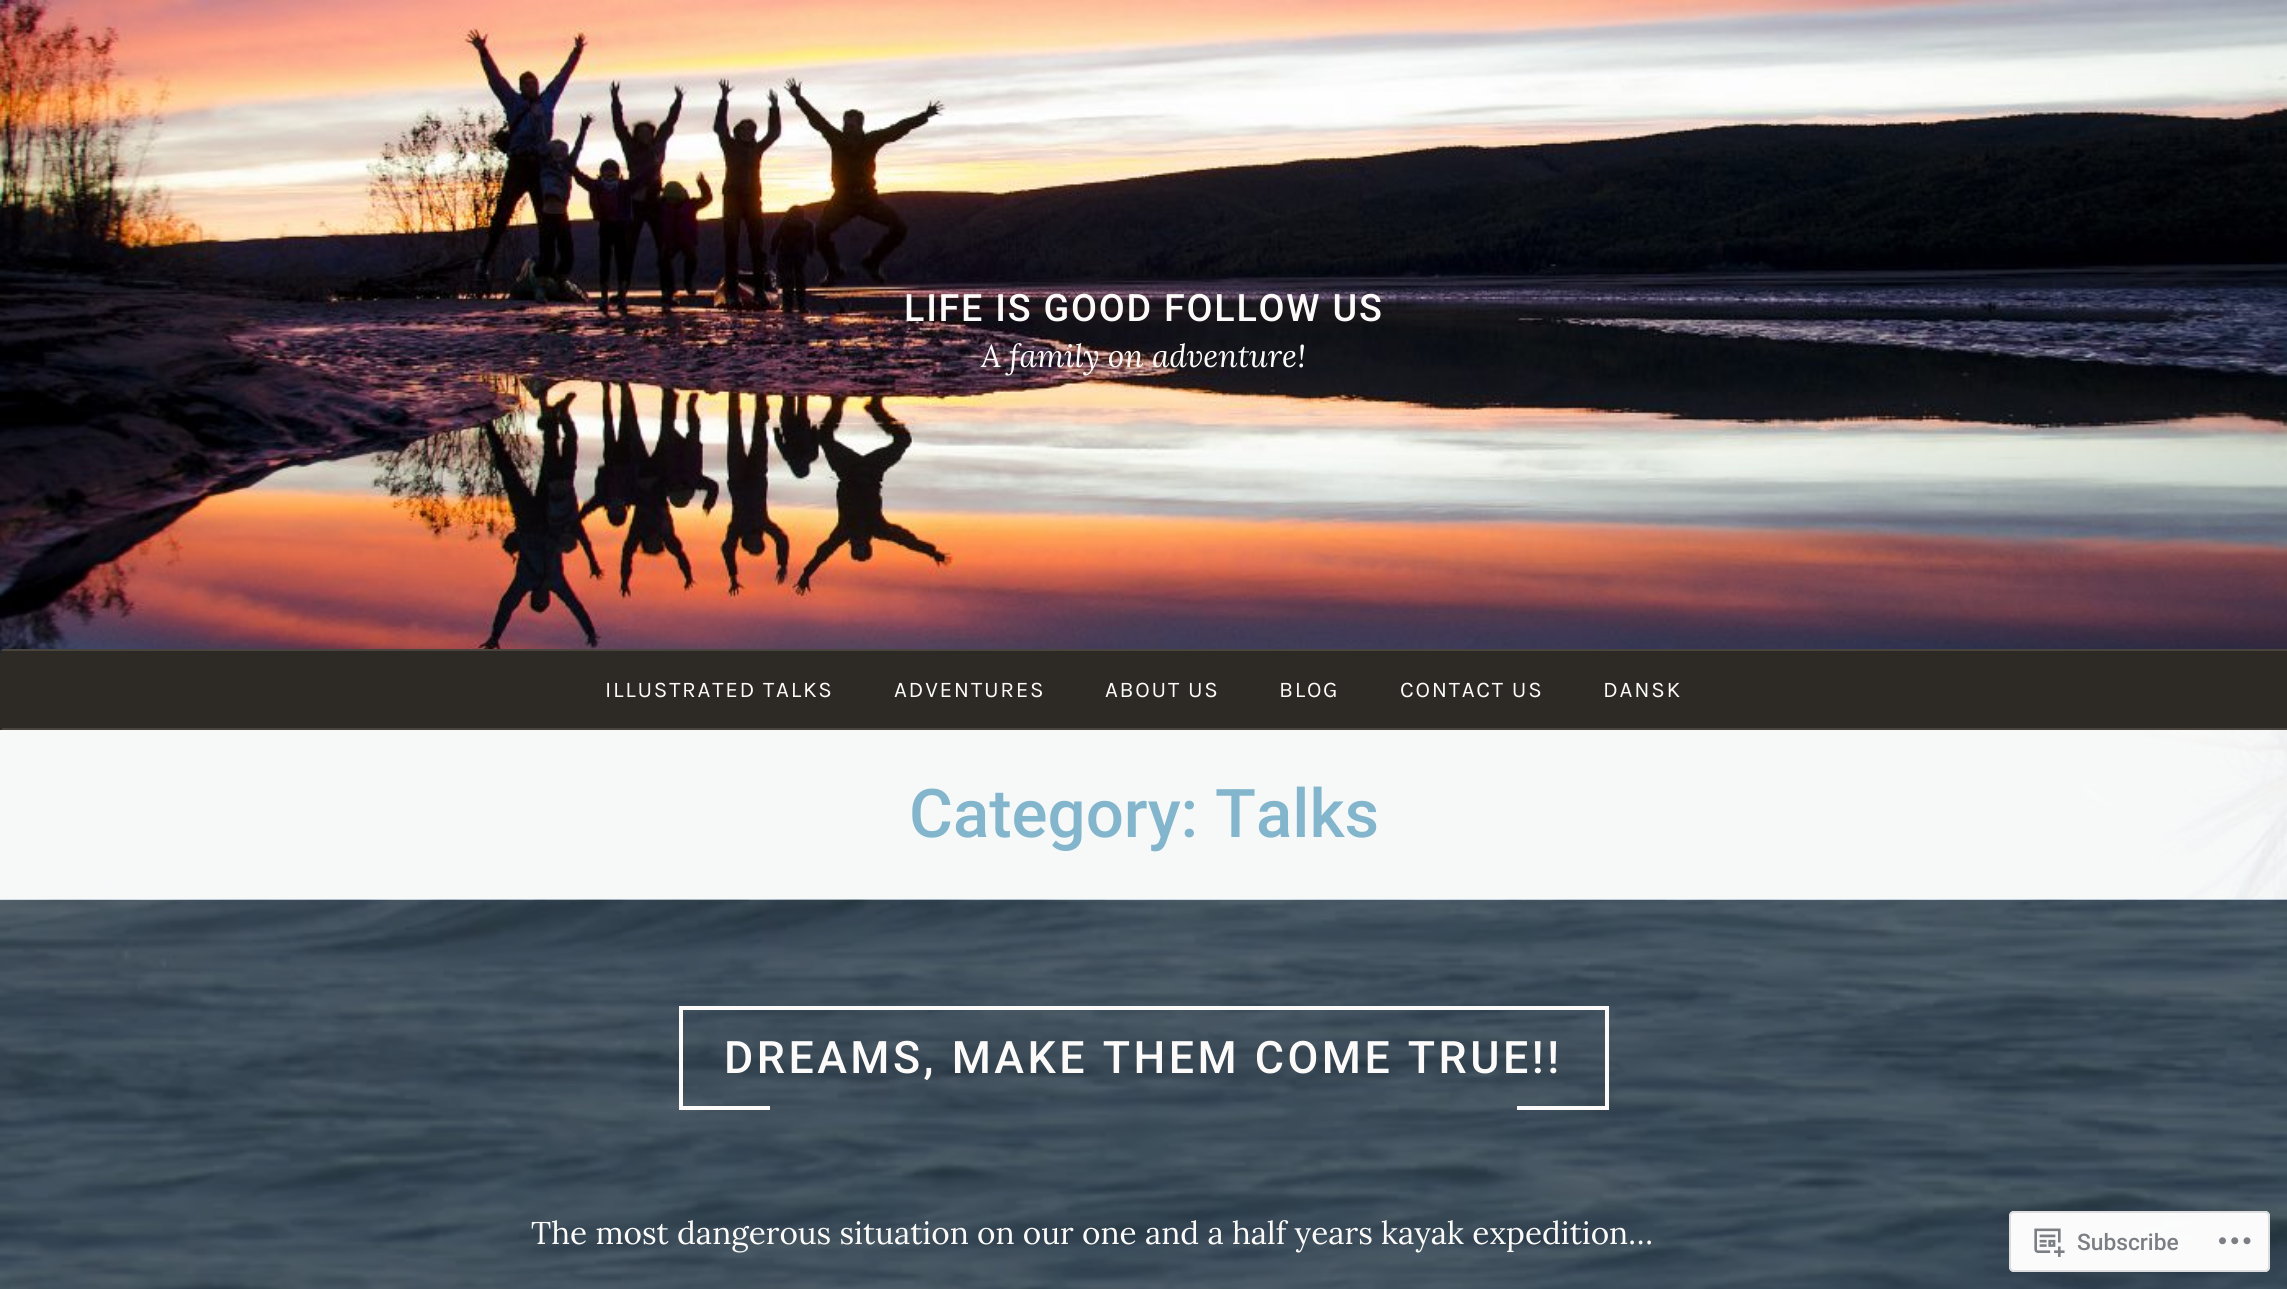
import math
import cairocffi as cairo

surface = cairo.ImageSurface(cairo.FORMAT_RGB24, 2287, 1289)
cr = cairo.Context(surface)
options = cairo.FontOptions()
options.set_hint_metrics(cairo.HINT_METRICS_OFF)
options.set_hint_style(cairo.HINT_STYLE_NONE)
cr.set_font_options(options)
cr.set_miter_limit(4)


def use_color(code):
    cr.set_source_rgb(*(v / 255 for v in bytes.fromhex(code[-6:])))


def spaced_text(x, y, s, letter, word):
    cr.move_to(x, y)
    for ch in s:
        cr.show_text(ch)
        cr.rel_move_to(letter + word * (ch == ' '), 0)


def round_rect(x, y, w, h, r):
    cr.new_sub_path()
    for i, (u, v) in enumerate([(x + w - r, y + h - r), (x + r, y + h - r), (x + r, y + r), (x + w - r, y + r)]):
        cr.arc(u, v, r, i * math.pi / 2, (i + 1) * math.pi / 2)
    cr.close_path()


def picture(path, x, y, w, h):
    cr.save()
    cr.set_source_surface(cairo.ImageSurface.create_from_png(path), x, y)
    cr.rectangle(x, y, w, h)
    cr.fill()
    cr.restore()


use_color("#ffffff")
cr.paint()
picture("img1.png", 0, 730, 2287, 170)
use_color("#2d2a26")
cr.rectangle(0, 652, 2, 78)
cr.fill()
picture("img2.png", 0, 0, 2287, 653)
cr.select_font_face("Roboto Medium")
cr.set_font_size(37.75)
use_color("#fcfbf9")
spaced_text(904, 321, "LIFE IS GOOD FOLLOW US", 1.75, 0)
cr.select_font_face("Lora", cairo.FONT_SLANT_ITALIC)
cr.set_font_size(31.5)
cr.move_to(981, 367)
cr.show_text("A family on adventure!")
use_color("#2d2a26")
cr.rectangle(2, 651, 2285, 77)
cr.fill()
use_color("#49443d")
cr.rectangle(2, 649, 2285, 2)
cr.fill()
cr.rectangle(2, 728, 2285, 2)
cr.fill()
cr.select_font_face("Karla")
cr.set_font_size(22.4)
use_color("#fcfbf9")
spaced_text(605, 697, "ILLUSTRATED TALKS", 1.75, 0)
spaced_text(894, 697, "ADVENTURES", 1.75, 0)
spaced_text(1105, 697, "ABOUT US", 1.75, 0)
spaced_text(1279, 697, "BLOG", 1.75, 0)
spaced_text(1400, 697, "CONTACT US", 1.75, 0)
spaced_text(1603, 697, "DANSK", 1.75, 0)
cr.select_font_face("Roboto Medium")
cr.set_font_size(67.25)
use_color("#83b6cc")
cr.move_to(909, 837)
cr.show_text("Category: Talks")
use_color("#293940")
cr.rectangle(0, 900, 2287, 389)
cr.fill()
picture("img3.png", 0, 899, 2287, 390)
cr.set_source_rgba(0, 0, 0, 0.25)
cr.rectangle(0, 900, 2287, 389)
cr.fill()
use_color("#fcfbf9")
cr.rectangle(679, 1006, 929, 4)
cr.fill()
cr.rectangle(1605, 1006, 4, 104)
cr.fill()
cr.rectangle(679, 1006, 4, 104)
cr.fill()
cr.set_font_size(44.75)
spaced_text(724, 1073, "DREAMS, MAKE THEM COME TRUE!!", 3.5, 0)
cr.rectangle(683, 1106, 87, 4)
cr.fill()
cr.rectangle(1517, 1106, 88, 4)
cr.fill()
cr.select_font_face("Lora")
cr.set_font_size(31.5)
cr.move_to(531, 1244)
cr.show_text("The most dangerous situation on our one and a half years kayak expedition…")
cr.set_source_rgba(1, 1, 1, 0.98)
round_rect(2009, 1211, 261, 61, 5)
cr.fill()
round_rect(2010, 1212, 259, 59, 4)
cr.set_source_rgba(0.863, 0.863, 0.871, 0.98)
cr.stroke()
picture("img4.png", 2034, 1228, 31, 29)
cr.select_font_face("Roboto Medium")
cr.set_font_size(22.75)
use_color("#7b7f84")
cr.move_to(2077, 1250)
cr.show_text("Subscribe")
picture("img5.png", 2219, 1237, 32, 8)
surface.write_to_png("result.png")
